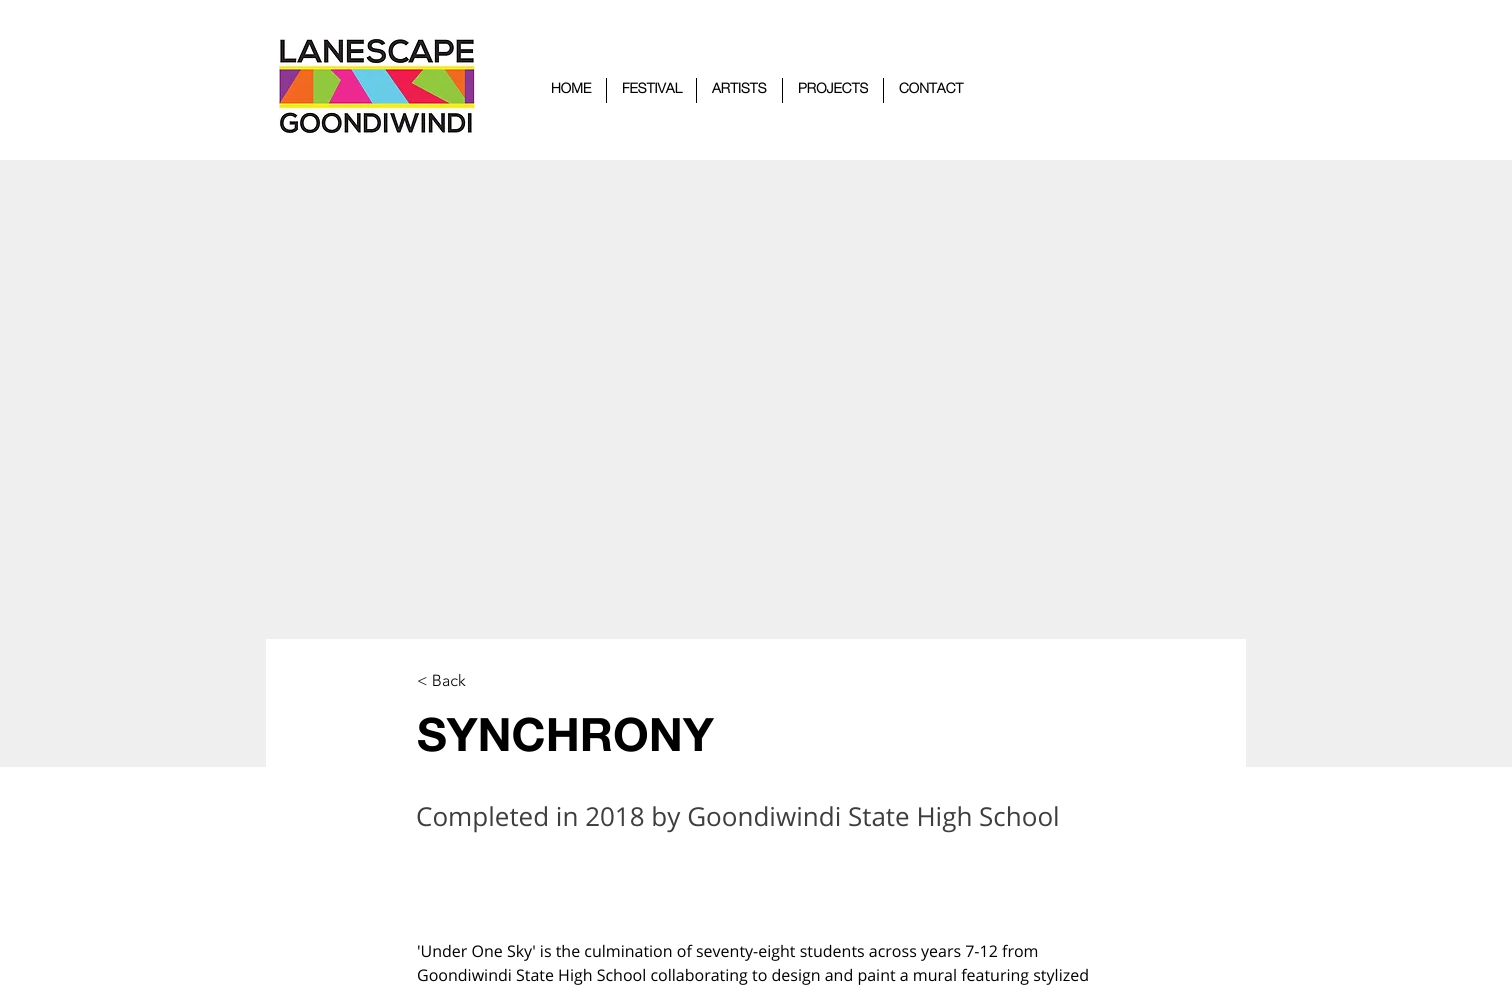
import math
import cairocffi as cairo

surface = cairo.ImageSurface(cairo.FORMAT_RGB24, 1512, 997)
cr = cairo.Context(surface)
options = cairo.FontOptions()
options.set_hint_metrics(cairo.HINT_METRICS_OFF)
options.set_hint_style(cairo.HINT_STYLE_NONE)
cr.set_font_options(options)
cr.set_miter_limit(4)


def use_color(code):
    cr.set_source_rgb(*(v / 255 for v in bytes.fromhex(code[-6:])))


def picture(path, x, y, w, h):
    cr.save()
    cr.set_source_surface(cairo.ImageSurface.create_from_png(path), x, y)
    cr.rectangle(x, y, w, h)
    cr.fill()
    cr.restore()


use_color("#ffffff")
cr.paint()
picture("img1.png", 279, 39, 196, 96)
cr.select_font_face("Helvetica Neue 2", cairo.FONT_SLANT_NORMAL, cairo.FONT_WEIGHT_BOLD)
cr.set_font_size(14)
use_color("#000000")
cr.move_to(551, 93)
cr.show_text("HOME")
cr.rectangle(606, 78, 1, 25)
cr.fill()
cr.move_to(622, 93)
cr.show_text("FESTIVAL")
cr.rectangle(696, 78, 1, 25)
cr.fill()
cr.move_to(712, 93)
cr.show_text("ARTISTS")
cr.rectangle(782, 78, 1, 25)
cr.fill()
cr.move_to(798, 93)
cr.show_text("PROJECTS")
cr.rectangle(883, 78, 1, 25)
cr.fill()
cr.move_to(899, 93)
cr.show_text("CONTACT")
use_color("#efefef")
cr.rectangle(0, 160, 1512, 607)
cr.fill()
use_color("#ffffff")
cr.rectangle(266, 639, 980, 128)
cr.fill()
cr.select_font_face("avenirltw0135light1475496 Light")
cr.set_font_size(16)
use_color("#000000")
cr.move_to(417, 686)
cr.show_text("< Back")
cr.select_font_face("Helvetica Neue", cairo.FONT_SLANT_NORMAL, cairo.FONT_WEIGHT_BOLD)
cr.set_font_size(46)
cr.move_to(417, 751)
cr.show_text("SYNCHRONY")
cr.select_font_face("Open Sans")
cr.set_font_size(26)
use_color("#3e3e3e")
cr.move_to(416, 826)
cr.show_text("Completed in 2018 by Goondiwindi State High School")
cr.set_font_size(16)
use_color("#000000")
cr.move_to(417, 957)
cr.show_text("'Under One Sky' is the culmination of seventy-eight students across years 7-12 from")
cr.move_to(417, 981)
cr.show_text("Goondiwindi State High School collaborating to design and paint a mural featuring stylized")
surface.write_to_png("result.png")
